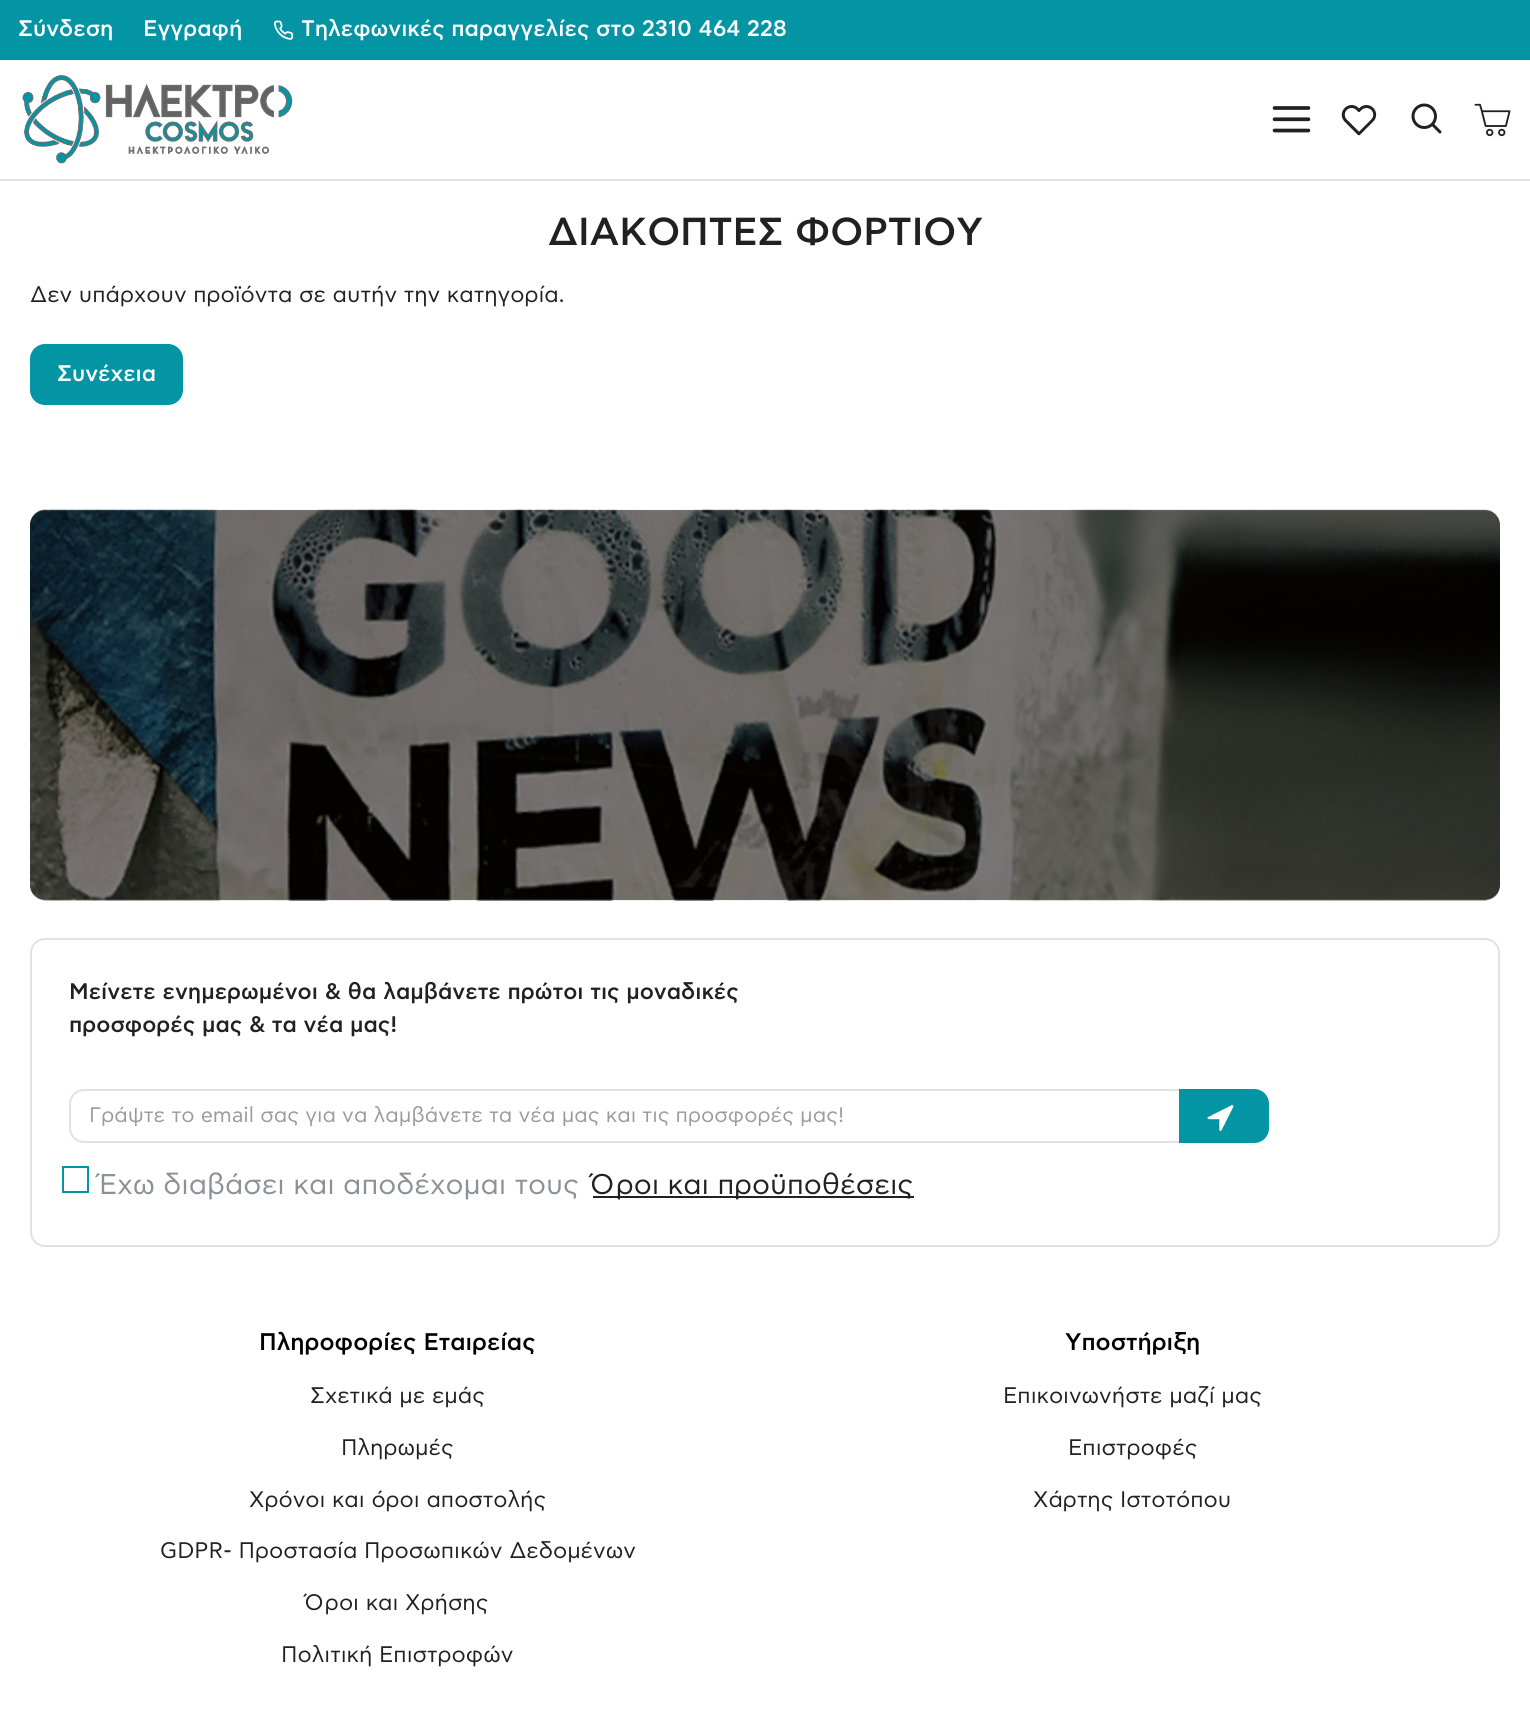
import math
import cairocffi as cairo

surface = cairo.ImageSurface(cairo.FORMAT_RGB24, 1530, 1716)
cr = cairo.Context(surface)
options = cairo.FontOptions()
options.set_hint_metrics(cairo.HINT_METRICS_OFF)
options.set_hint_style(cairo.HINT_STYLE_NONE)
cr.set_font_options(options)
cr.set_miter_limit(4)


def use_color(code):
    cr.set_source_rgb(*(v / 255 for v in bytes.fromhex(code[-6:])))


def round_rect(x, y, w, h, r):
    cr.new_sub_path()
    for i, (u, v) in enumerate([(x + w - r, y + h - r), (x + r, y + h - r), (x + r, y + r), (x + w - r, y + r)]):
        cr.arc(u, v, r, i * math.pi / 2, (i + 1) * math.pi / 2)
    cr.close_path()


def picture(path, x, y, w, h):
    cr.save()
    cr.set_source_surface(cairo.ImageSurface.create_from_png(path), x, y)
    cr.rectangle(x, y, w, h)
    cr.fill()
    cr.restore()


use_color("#ffffff")
cr.paint()
use_color("#0395a4")
cr.rectangle(0, 0, 1530, 60)
cr.fill()
cr.select_font_face("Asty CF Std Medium")
cr.set_font_size(22.5)
use_color("#ffffff")
cr.move_to(18, 36)
cr.show_text("Σύνδεση")
cr.move_to(143, 36)
cr.show_text("Εγγραφή")
picture("img1.png", 274, 20, 20, 20)
cr.save()
cr.rectangle(302, 14, 486, 33)
cr.clip()
cr.move_to(301, 36)
cr.show_text("Τηλεφωνικές παραγγελίες στο")
cr.restore()
cr.move_to(642, 36)
cr.show_text("2310 464 228")
use_color("#e2e2e2")
cr.rectangle(0, 179, 1530, 2)
cr.fill()
picture("img2.png", 22, 75, 271, 89)
picture("img3.png", 1272, 106, 39, 27)
picture("img4.png", 1341, 105, 36, 31)
picture("img5.png", 1411, 103, 31, 31)
picture("img6.png", 1474, 103, 37, 34)
cr.set_font_size(39)
use_color("#212121")
cr.move_to(548, 245)
cr.show_text("ΔΙΑΚΟΠΤΕΣ ΦΟΡΤΙΟΥ")
cr.select_font_face("Asty CF Std")
cr.set_font_size(22.5)
cr.move_to(30, 302)
cr.show_text("Δεν υπάρχουν προϊόντα σε αυτήν την κατηγορία.")
use_color("#0395a4")
round_rect(30, 344, 153, 61, 15)
cr.fill()
cr.select_font_face("Asty CF Std Medium")
use_color("#ffffff")
cr.move_to(57, 381)
cr.show_text("Συνέχεια")
picture("img7.png", 30, 509, 1470, 392)
cr.set_source_rgba(0, 0, 0, 0.5)
round_rect(30, 510, 1470, 390, 15)
cr.fill()
round_rect(31, 939, 1468, 307, 14)
use_color("#e2e2e2")
cr.stroke()
use_color("#212121")
cr.move_to(69, 999)
cr.show_text("Μείνετε ενημερωμένοι & θα λαμβάνετε πρώτοι τις μοναδικές")
cr.move_to(69, 1032)
cr.show_text("προσφορές μας & τα νέα μας!")
round_rect(70, 1090, 1198, 52, 14)
use_color("#e2e2e2")
cr.stroke()
cr.select_font_face("Asty CF Std")
cr.set_font_size(21)
use_color("#9b9b9b")
cr.move_to(89, 1122)
cr.show_text("Γράψτε το email σας για να λαμβάνετε τα νέα μας και τις προσφορές μας!")
use_color("#0395a4")
cr.new_path()
cr.move_to(1179, 1089)
cr.line_to(1254, 1089)
cr.curve_to(1262.5, 1089, 1269, 1095.5, 1269, 1104)
cr.line_to(1269, 1128)
cr.curve_to(1269, 1136.5, 1262.5, 1143, 1254, 1143)
cr.line_to(1179, 1143)
cr.close_path()
cr.fill()
picture("img8.png", 1207, 1105, 27, 26)
cr.rectangle(63, 1167, 25, 25)
cr.stroke()
cr.set_font_size(28.5)
use_color("#8b9198")
cr.move_to(99, 1194)
cr.show_text("Έχω διαβάσει και αποδέχομαι τους")
use_color("#212121")
cr.rectangle(593, 1196, 321, 2)
cr.fill()
cr.move_to(592, 1194)
cr.show_text("Όροι και προϋποθέσεις")
cr.select_font_face("Asty CF Std Medium")
cr.set_font_size(24)
use_color("#000000")
cr.move_to(259, 1350)
cr.show_text("Πληροφορίες Εταιρείας")
cr.select_font_face("Asty CF Std")
cr.set_font_size(22.5)
use_color("#212121")
cr.move_to(310, 1403)
cr.show_text("Σχετικά με εμάς")
cr.move_to(341, 1455)
cr.show_text("Πληρωμές")
cr.move_to(249, 1507)
cr.show_text("Χρόνοι και όροι αποστολής")
cr.move_to(160, 1558)
cr.show_text("GDPR- Προστασία Προσωπικών Δεδομένων")
cr.move_to(306, 1610)
cr.show_text("Όροι και Χρήσης")
cr.move_to(281, 1662)
cr.show_text("Πολιτική Επιστροφών")
cr.select_font_face("Asty CF Std Medium")
cr.set_font_size(24)
use_color("#000000")
cr.move_to(1065, 1350)
cr.show_text("Υποστήριξη")
cr.select_font_face("Asty CF Std")
cr.set_font_size(22.5)
use_color("#212121")
cr.move_to(1003, 1403)
cr.show_text("Επικοινωνήστε μαζί μας")
cr.move_to(1068, 1455)
cr.show_text("Επιστροφές")
cr.move_to(1033, 1507)
cr.show_text("Χάρτης Ιστοτόπου")
surface.write_to_png("result.png")
